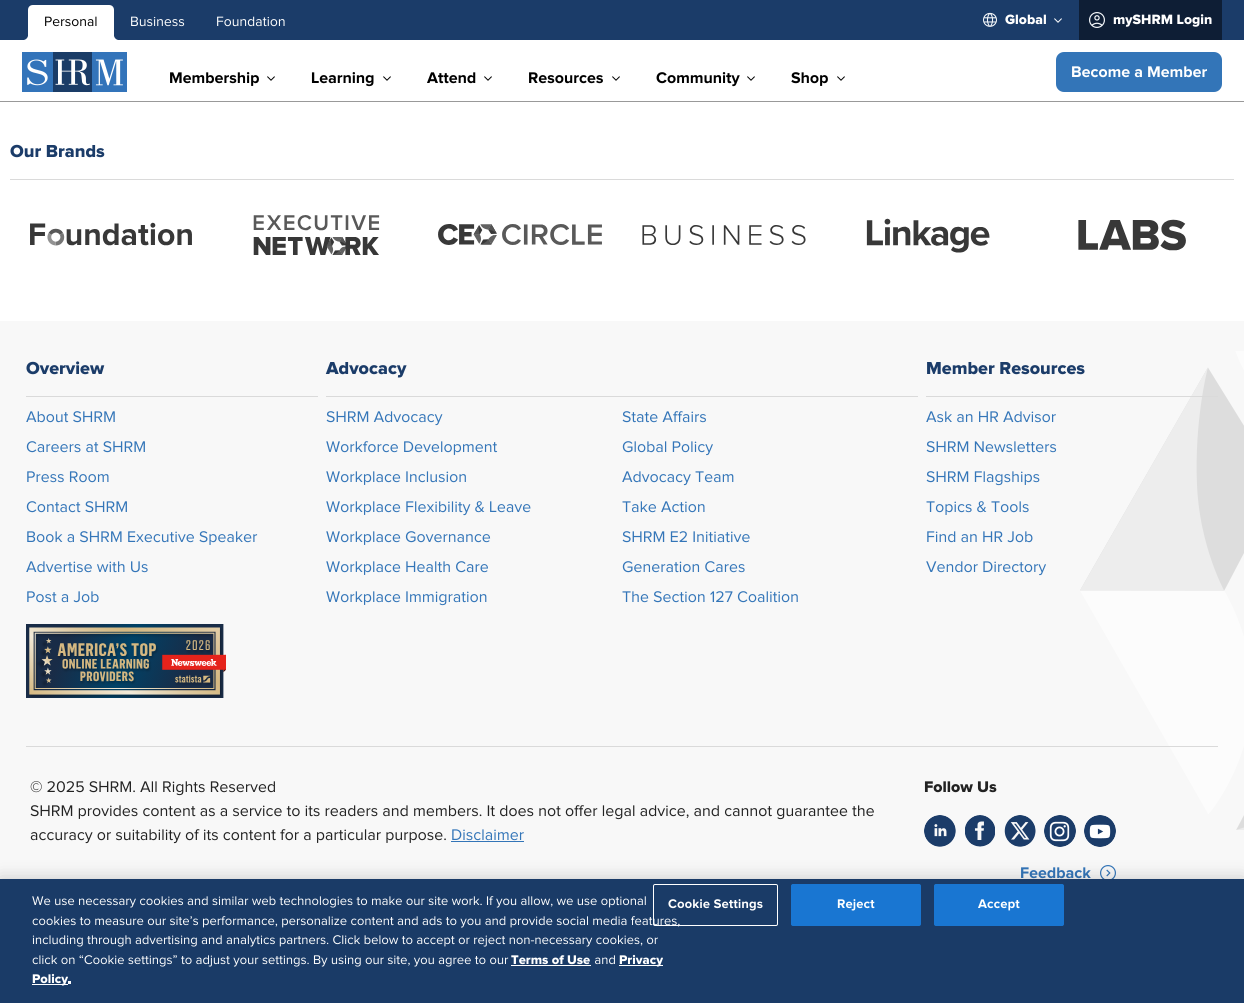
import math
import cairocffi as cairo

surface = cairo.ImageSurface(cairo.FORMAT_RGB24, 1244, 1003)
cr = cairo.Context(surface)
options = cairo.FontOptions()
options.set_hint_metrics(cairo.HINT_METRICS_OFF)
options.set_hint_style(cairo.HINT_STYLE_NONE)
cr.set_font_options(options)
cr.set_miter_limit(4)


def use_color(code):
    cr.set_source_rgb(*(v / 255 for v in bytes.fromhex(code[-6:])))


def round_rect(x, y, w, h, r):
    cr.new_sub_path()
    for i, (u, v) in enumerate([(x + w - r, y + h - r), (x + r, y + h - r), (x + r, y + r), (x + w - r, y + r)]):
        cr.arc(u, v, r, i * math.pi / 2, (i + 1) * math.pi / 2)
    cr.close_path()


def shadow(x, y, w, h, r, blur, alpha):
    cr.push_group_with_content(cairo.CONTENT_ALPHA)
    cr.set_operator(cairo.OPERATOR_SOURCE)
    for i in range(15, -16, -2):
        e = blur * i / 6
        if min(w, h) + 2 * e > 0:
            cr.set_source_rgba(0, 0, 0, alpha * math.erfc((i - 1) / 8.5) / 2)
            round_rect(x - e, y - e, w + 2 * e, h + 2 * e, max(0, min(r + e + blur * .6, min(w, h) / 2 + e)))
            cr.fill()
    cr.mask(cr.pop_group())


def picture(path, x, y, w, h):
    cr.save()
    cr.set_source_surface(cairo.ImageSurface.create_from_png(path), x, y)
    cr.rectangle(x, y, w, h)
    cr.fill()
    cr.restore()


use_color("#ffffff")
cr.paint()
use_color("#1b3c69")
cr.rectangle(0, 0, 1244, 40)
cr.fill()
use_color("#ffffff")
cr.new_path()
cr.move_to(33, 5)
cr.line_to(109, 5)
cr.curve_to(112, 5, 114, 7, 114, 10)
cr.line_to(114, 40)
cr.line_to(28, 40)
cr.line_to(28, 10)
cr.curve_to(28, 7, 30, 5, 33, 5)
cr.close_path()
cr.fill()
picture("img1.png", 45, 16, 52, 11)
cr.new_path()
cr.move_to(24, 40)
cr.line_to(24, 42)
cr.curve_to(28, 42, 30, 40, 30, 36)
cr.line_to(28, 36)
cr.curve_to(27.5, 38, 26, 39.5, 24, 40)
cr.close_path()
cr.fill()
cr.new_path()
cr.move_to(112, 36)
cr.curve_to(112, 40, 114, 42, 118, 42)
cr.line_to(118, 40)
cr.curve_to(116, 39.5, 114.5, 38, 114, 36)
cr.close_path()
cr.fill()
picture("img2.png", 131, 16, 54, 11)
picture("img3.png", 217, 16, 68, 11)
picture("img4.png", 983, 12, 14, 15)
cr.select_font_face("Proxima Nova ExtraBold")
cr.set_font_size(14)
cr.move_to(1005, 24)
cr.show_text("Global")
picture("img5.png", 1054, 18, 8, 5)
use_color("#0e1e35")
cr.rectangle(1079, 0, 143, 40)
cr.fill()
picture("img6.png", 1089, 12, 16, 16)
use_color("#ffffff")
cr.move_to(1113, 24)
cr.show_text("mySHRM Login")
use_color("#999999")
cr.rectangle(0, 101, 1244, 1)
cr.fill()
picture("img7.png", 22, 52, 105, 40)
picture("img8.png", 170, 72, 89, 14)
picture("img9.png", 267, 76, 8, 5)
picture("img10.png", 311, 72, 63, 15)
picture("img9.png", 383, 76, 8, 5)
picture("img11.png", 427, 72, 49, 12)
picture("img9.png", 484, 76, 8, 5)
picture("img12.png", 529, 72, 74, 12)
picture("img9.png", 612, 76, 8, 5)
picture("img13.png", 656, 72, 84, 15)
picture("img9.png", 747, 76, 8, 5)
picture("img14.png", 791, 72, 37, 14)
picture("img9.png", 837, 76, 8, 5)
use_color("#3375b8")
round_rect(1056, 52, 166, 40, 8)
cr.fill()
picture("img15.png", 1072, 66, 135, 12)
cr.set_font_size(18)
use_color("#1b3c69")
cr.move_to(10, 157)
cr.show_text("Our Brands")
use_color("#dadada")
cr.rectangle(10, 179, 1224, 1)
cr.fill()
picture("img16.png", 30, 222, 162, 24)
picture("img17.png", 253, 215, 127, 40)
picture("img18.png", 438, 224, 164, 21)
picture("img19.png", 642, 225, 164, 20)
picture("img20.png", 866, 218, 124, 35)
picture("img21.png", 1078, 219, 108, 32)
use_color("#f8f8f8")
cr.rectangle(0, 321, 1244, 558)
cr.fill()
picture("img22.png", 1080, 351, 164, 479)
use_color("#1b3c69")
cr.move_to(26, 374)
cr.show_text("Overview")
use_color("#dadada")
cr.rectangle(26, 396, 292, 1)
cr.fill()
picture("img23.png", 26, 411, 89, 12)
picture("img24.png", 26, 441, 119, 12)
picture("img25.png", 27, 471, 82, 12)
picture("img26.png", 26, 501, 101, 12)
picture("img27.png", 27, 531, 231, 14)
picture("img28.png", 26, 561, 122, 12)
picture("img29.png", 27, 591, 72, 12)
picture("img30.png", 26, 624, 200, 74)
use_color("#1b3c69")
cr.move_to(326, 374)
cr.show_text("Advocacy")
use_color("#dadada")
cr.rectangle(326, 396, 592, 1)
cr.fill()
picture("img31.png", 326, 411, 117, 15)
picture("img32.png", 326, 441, 172, 14)
picture("img33.png", 326, 471, 140, 14)
picture("img34.png", 326, 501, 205, 15)
picture("img35.png", 326, 531, 165, 14)
picture("img36.png", 326, 561, 162, 14)
picture("img37.png", 326, 591, 161, 15)
picture("img38.png", 622, 411, 84, 12)
picture("img39.png", 622, 441, 91, 15)
picture("img40.png", 622, 471, 112, 15)
picture("img41.png", 622, 501, 83, 12)
picture("img42.png", 622, 531, 128, 12)
picture("img43.png", 622, 561, 123, 12)
picture("img44.png", 622, 591, 176, 12)
use_color("#1b3c69")
cr.move_to(926, 374)
cr.show_text("Member Resources")
use_color("#dadada")
cr.rectangle(926, 396, 292, 1)
cr.fill()
picture("img45.png", 926, 411, 130, 12)
picture("img46.png", 926, 441, 131, 12)
picture("img47.png", 926, 471, 114, 15)
picture("img48.png", 926, 501, 103, 14)
picture("img49.png", 927, 531, 106, 12)
picture("img50.png", 926, 561, 120, 15)
cr.rectangle(26, 746, 1192, 1)
cr.fill()
picture("img51.png", 30, 781, 245, 15)
picture("img52.png", 30, 805, 844, 15)
picture("img53.png", 30, 829, 416, 15)
picture("img54.png", 452, 829, 72, 12)
use_color("#3375b8")
cr.rectangle(451, 841, 73, 1)
cr.fill()
cr.set_font_size(16)
use_color("#222222")
cr.move_to(924, 792)
cr.show_text("Follow Us")
picture("img55.png", 924, 815, 32, 32)
picture("img56.png", 965, 815, 30, 32)
picture("img57.png", 1004, 815, 32, 32)
picture("img58.png", 1044, 815, 32, 32)
picture("img59.png", 1084, 815, 32, 32)
picture("img60.png", 1021, 867, 70, 12)
picture("img61.png", 1100, 865, 16, 14)
use_color("#000000")
shadow(0, 879, 1244, 124, 0, 9, 0.2)
use_color("#1a3b67")
cr.rectangle(0, 879, 1244, 124)
cr.fill()
round_rect(653.5, 884.5, 124, 41, 1.5)
use_color("#ffffff")
cr.set_line_width(1)
cr.stroke()
picture("img62.png", 668, 899, 95, 12)
use_color("#1976d2")
round_rect(791.5, 884.5, 129, 41, 1.5)
cr.fill_preserve()
cr.stroke()
picture("img63.png", 837, 899, 38, 12)
round_rect(934.5, 884.5, 129, 41, 1.5)
cr.fill_preserve()
cr.stroke()
picture("img64.png", 978, 899, 42, 12)
picture("img65.png", 32, 896, 614, 12)
picture("img66.png", 32, 916, 648, 12)
picture("img67.png", 32, 935, 626, 12)
picture("img68.png", 32, 955, 477, 12)
cr.set_font_size(13)
use_color("#ffffff")
cr.move_to(511, 964)
cr.show_text("Terms of Use")
cr.rectangle(511, 965, 80, 1)
cr.fill()
picture("img69.png", 595, 955, 20, 10)
cr.rectangle(619, 965, 44, 1)
cr.fill()
cr.move_to(619, 964)
cr.show_text("Privacy")
cr.rectangle(32, 984, 36, 1)
cr.fill()
cr.move_to(32, 983)
cr.show_text("Policy")
use_color("#fafbfc")
cr.rectangle(68, 981, 3, 3)
cr.fill()
surface.write_to_png("result.png")
